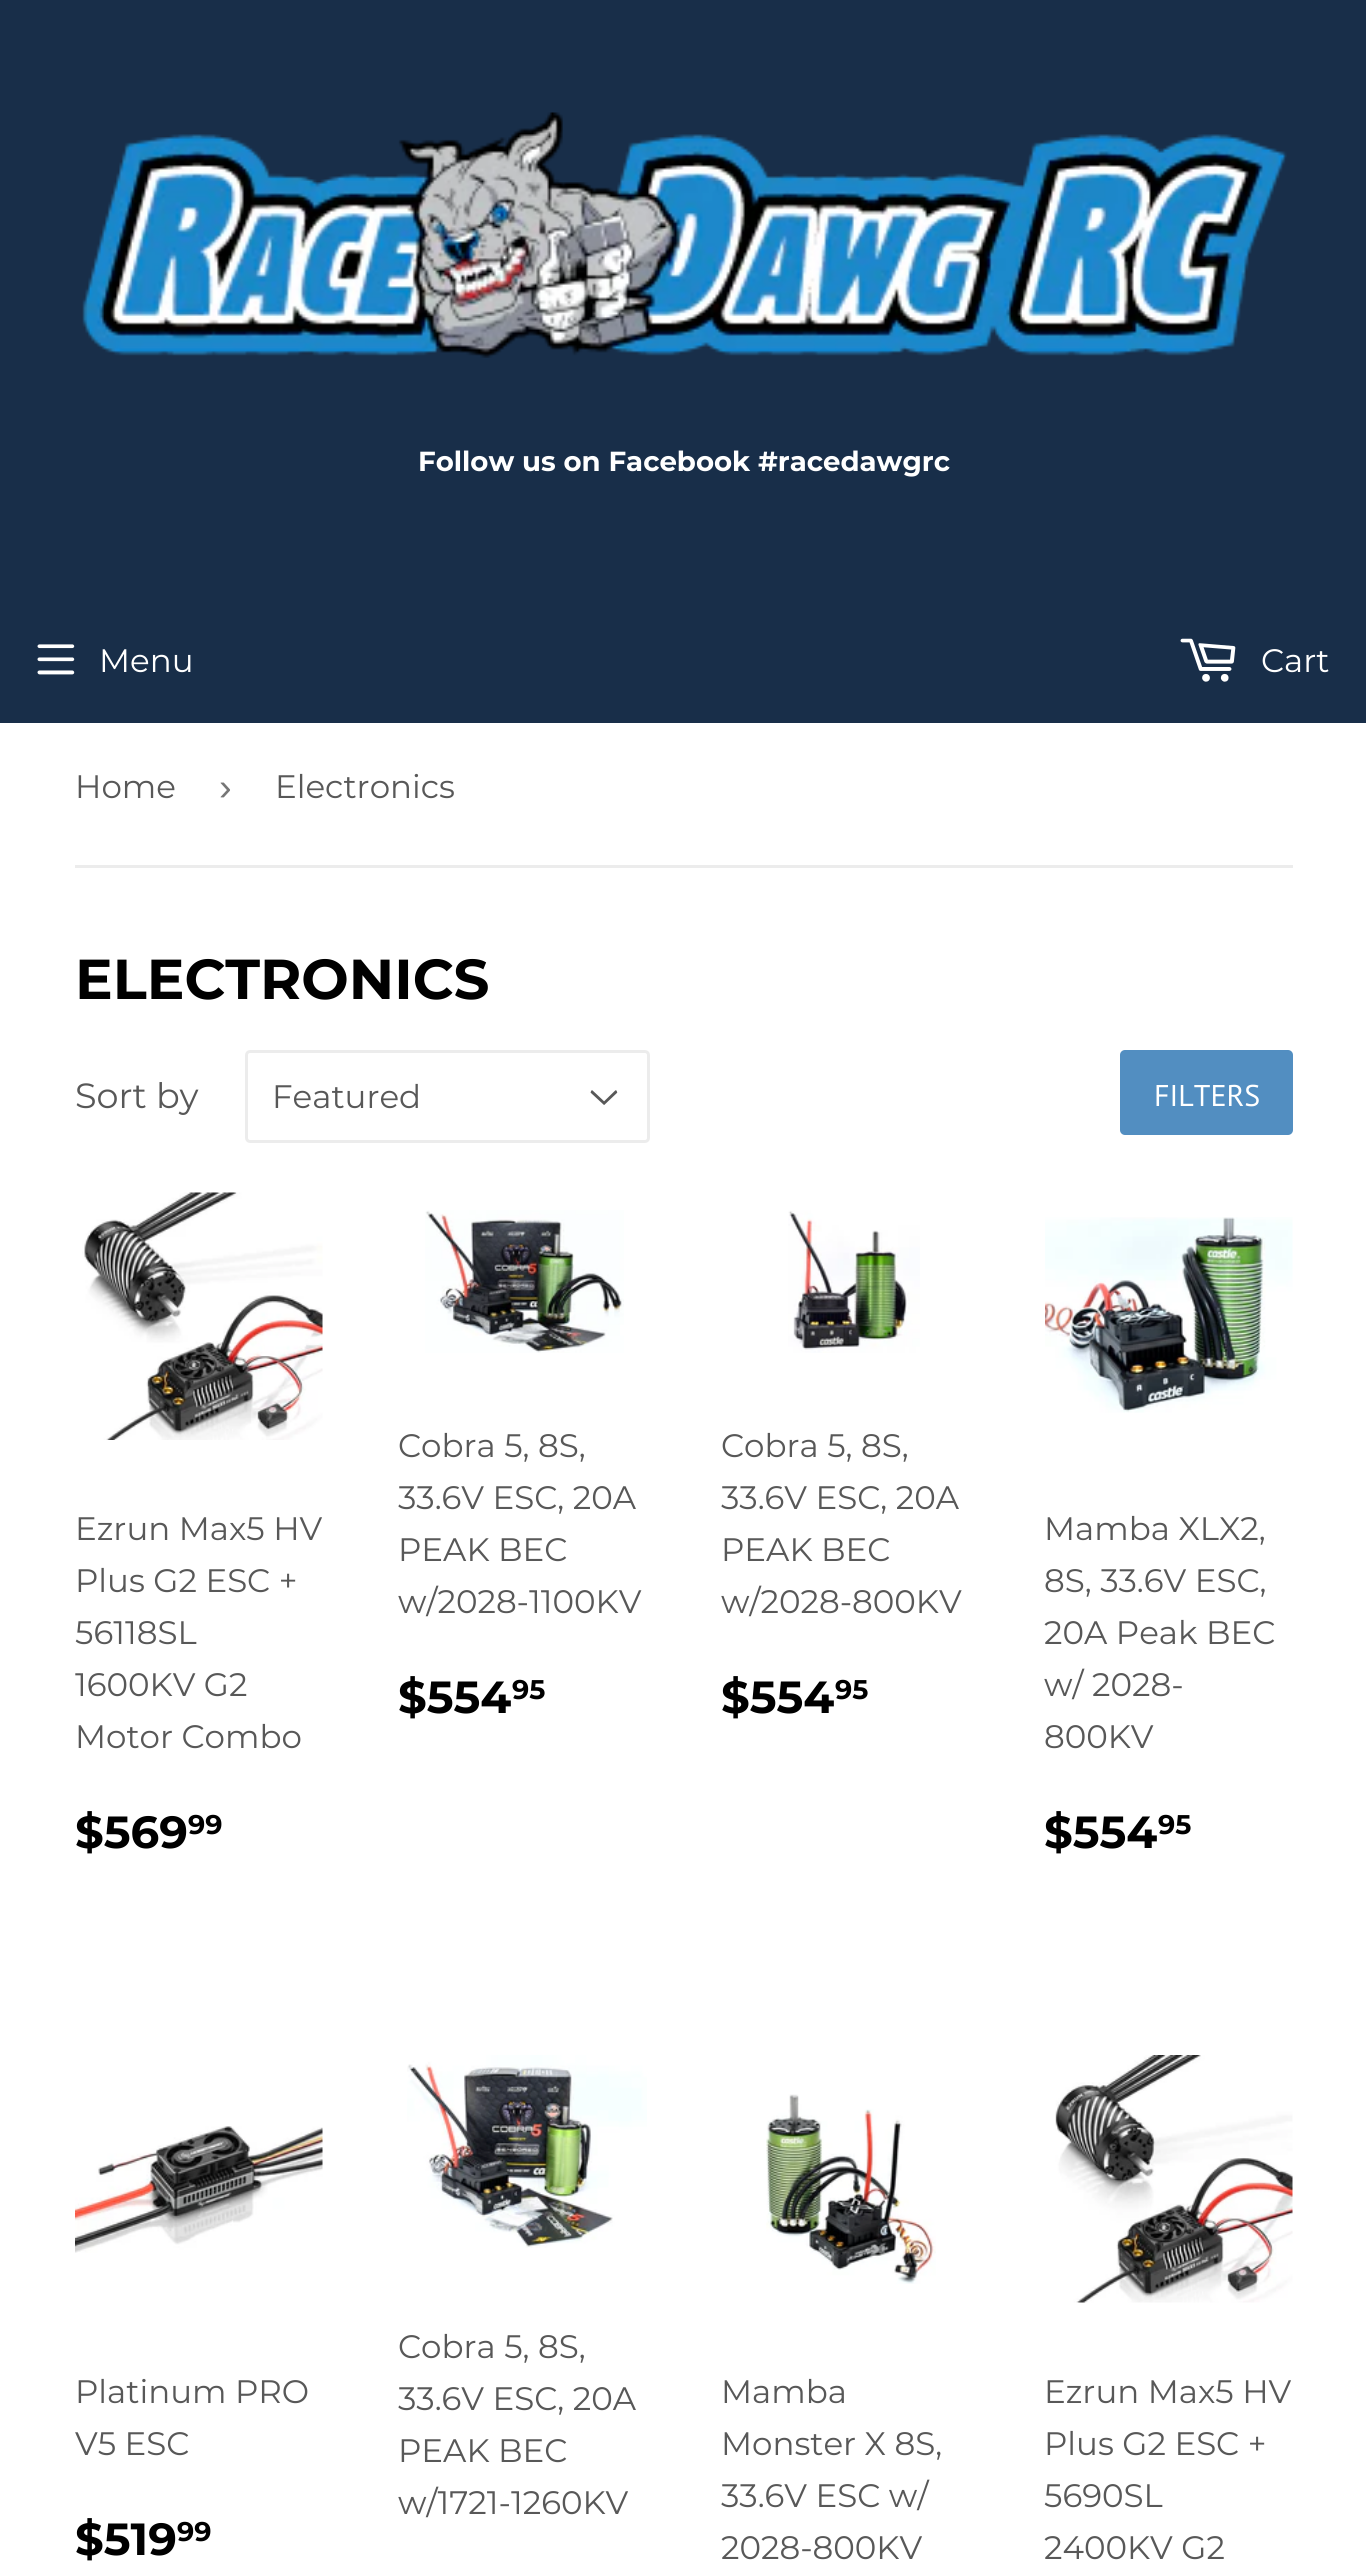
import math
import cairocffi as cairo

surface = cairo.ImageSurface(cairo.FORMAT_RGB24, 1366, 2563)
cr = cairo.Context(surface)
options = cairo.FontOptions()
options.set_hint_metrics(cairo.HINT_METRICS_OFF)
options.set_hint_style(cairo.HINT_STYLE_NONE)
cr.set_font_options(options)
cr.set_miter_limit(4)


def use_color(code):
    cr.set_source_rgb(*(v / 255 for v in bytes.fromhex(code[-6:])))


def round_rect(x, y, w, h, r):
    cr.new_sub_path()
    for i, (u, v) in enumerate([(x + w - r, y + h - r), (x + r, y + h - r), (x + r, y + r), (x + w - r, y + r)]):
        cr.arc(u, v, r, i * math.pi / 2, (i + 1) * math.pi / 2)
    cr.close_path()


def picture(path, x, y, w, h):
    cr.save()
    cr.set_source_surface(cairo.ImageSurface.create_from_png(path), x, y)
    cr.rectangle(x, y, w, h)
    cr.fill()
    cr.restore()


use_color("#ffffff")
cr.paint()
use_color("#182e49")
cr.rectangle(0, 0, 1366, 723)
cr.fill()
picture("img1.png", 82, 112, 1205, 246)
cr.select_font_face("Montserrat", cairo.FONT_SLANT_NORMAL, cairo.FONT_WEIGHT_BOLD)
cr.set_font_size(27.6)
use_color("#ffffff")
cr.move_to(418, 471)
cr.show_text("Follow us on Facebook #racedawgrc")
picture("img2.png", 37, 644, 38, 31)
cr.select_font_face("Montserrat")
cr.set_font_size(32.5)
cr.move_to(99, 672)
cr.show_text("Menu")
picture("img3.png", 1180, 638, 56, 44)
cr.move_to(1261, 672)
cr.show_text("Cart")
use_color("#ececec")
cr.rectangle(75, 865, 1218, 3)
cr.fill()
use_color("#585858")
cr.move_to(75, 798)
cr.show_text("Home")
cr.select_font_face("Liberation Sans")
cr.set_font_size(38)
use_color("#767676")
cr.move_to(219, 800)
cr.show_text("›")
cr.select_font_face("Montserrat")
cr.set_font_size(32.5)
use_color("#585858")
cr.move_to(275, 798)
cr.show_text("Electronics")
cr.select_font_face("Montserrat", cairo.FONT_SLANT_NORMAL, cairo.FONT_WEIGHT_BOLD)
cr.set_font_size(56.25)
use_color("#000000")
cr.move_to(75, 999)
cr.show_text("ELECTRONICS")
cr.select_font_face("Montserrat")
cr.set_font_size(35)
use_color("#585858")
cr.move_to(75, 1108)
cr.show_text("Sort by")
picture("img4.png", 590, 1090, 28, 15)
round_rect(246.5, 1051.5, 402, 90, 3.5)
use_color("#ececec")
cr.set_line_width(3)
cr.stroke()
cr.set_font_size(32.5)
use_color("#585858")
cr.move_to(272, 1108)
cr.show_text("Featured")
use_color("#528ec1")
round_rect(1120, 1050, 173, 85, 5)
cr.fill()
cr.select_font_face("PT Sans")
cr.set_font_size(30)
use_color("#ffffff")
cr.move_to(1154, 1106)
cr.show_text("FILTERS")
picture("img5.png", 82, 1192, 241, 248)
cr.select_font_face("Montserrat")
cr.set_font_size(32.5)
use_color("#585858")
cr.move_to(75, 1540)
cr.show_text("Ezrun Max5 HV")
cr.move_to(75, 1592)
cr.show_text("Plus G2 ESC +")
cr.move_to(75, 1644)
cr.show_text("56118SL")
cr.move_to(75, 1696)
cr.show_text("1600KV G2")
cr.move_to(75, 1748)
cr.show_text("Motor Combo")
cr.select_font_face("Montserrat", cairo.FONT_SLANT_NORMAL, cairo.FONT_WEIGHT_BOLD)
cr.set_font_size(45)
use_color("#000000")
cr.move_to(75, 1848)
cr.show_text("$569")
cr.set_font_size(27)
cr.move_to(188, 1834)
cr.show_text("99")
picture("img6.png", 425, 1210, 199, 143)
cr.select_font_face("Montserrat")
cr.set_font_size(32.5)
use_color("#585858")
cr.move_to(398, 1457)
cr.show_text("Cobra 5, 8S,")
cr.move_to(398, 1509)
cr.show_text("33.6V ESC, 20A")
cr.move_to(398, 1561)
cr.show_text("PEAK BEC")
cr.move_to(398, 1613)
cr.show_text("w/2028-1100KV")
cr.select_font_face("Montserrat", cairo.FONT_SLANT_NORMAL, cairo.FONT_WEIGHT_BOLD)
cr.set_font_size(45)
use_color("#000000")
cr.move_to(398, 1713)
cr.show_text("$554")
cr.set_font_size(27)
cr.move_to(512, 1699)
cr.show_text("95")
picture("img7.png", 788, 1210, 132, 143)
cr.select_font_face("Montserrat")
cr.set_font_size(32.5)
use_color("#585858")
cr.move_to(721, 1457)
cr.show_text("Cobra 5, 8S,")
cr.move_to(721, 1509)
cr.show_text("33.6V ESC, 20A")
cr.move_to(721, 1561)
cr.show_text("PEAK BEC")
cr.move_to(721, 1613)
cr.show_text("w/2028-800KV")
cr.select_font_face("Montserrat", cairo.FONT_SLANT_NORMAL, cairo.FONT_WEIGHT_BOLD)
cr.set_font_size(45)
use_color("#000000")
cr.move_to(721, 1713)
cr.show_text("$554")
cr.set_font_size(27)
cr.move_to(835, 1699)
cr.show_text("95")
picture("img8.png", 1045, 1217, 248, 196)
cr.select_font_face("Montserrat")
cr.set_font_size(32.5)
use_color("#585858")
cr.move_to(1044, 1540)
cr.show_text("Mamba XLX2,")
cr.move_to(1044, 1592)
cr.show_text("8S, 33.6V ESC,")
cr.move_to(1044, 1644)
cr.show_text("20A Peak BEC")
cr.move_to(1044, 1696)
cr.show_text("w/ 2028-")
cr.move_to(1044, 1748)
cr.show_text("800KV")
cr.select_font_face("Montserrat", cairo.FONT_SLANT_NORMAL, cairo.FONT_WEIGHT_BOLD)
cr.set_font_size(45)
use_color("#000000")
cr.move_to(1044, 1848)
cr.show_text("$554")
cr.set_font_size(27)
cr.move_to(1158, 1834)
cr.show_text("95")
picture("img9.png", 75, 2126, 248, 127)
cr.select_font_face("Montserrat")
cr.set_font_size(32.5)
use_color("#585858")
cr.move_to(75, 2403)
cr.show_text("Platinum PRO")
cr.move_to(75, 2455)
cr.show_text("V5 ESC")
cr.select_font_face("Montserrat", cairo.FONT_SLANT_NORMAL, cairo.FONT_WEIGHT_BOLD)
cr.set_font_size(45)
use_color("#000000")
cr.move_to(75, 2555)
cr.show_text("$519")
cr.set_font_size(27)
cr.move_to(177, 2541)
cr.show_text("99")
picture("img10.png", 407, 2055, 240, 193)
cr.select_font_face("Montserrat")
cr.set_font_size(32.5)
use_color("#585858")
cr.move_to(398, 2358)
cr.show_text("Cobra 5, 8S,")
cr.move_to(398, 2410)
cr.show_text("33.6V ESC, 20A")
cr.move_to(398, 2462)
cr.show_text("PEAK BEC")
cr.move_to(398, 2514)
cr.show_text("w/1721-1260KV")
picture("img11.png", 766, 2094, 170, 190)
cr.move_to(721, 2403)
cr.show_text("Mamba")
cr.move_to(721, 2455)
cr.show_text("Monster X 8S,")
cr.move_to(721, 2507)
cr.show_text("33.6V ESC w/")
cr.move_to(721, 2559)
cr.show_text("2028-800KV")
picture("img12.png", 1055, 2055, 238, 248)
cr.move_to(1044, 2403)
cr.show_text("Ezrun Max5 HV")
cr.move_to(1044, 2455)
cr.show_text("Plus G2 ESC +")
cr.move_to(1044, 2507)
cr.show_text("5690SL")
cr.move_to(1044, 2559)
cr.show_text("2400KV G2")
surface.write_to_png("result.png")
